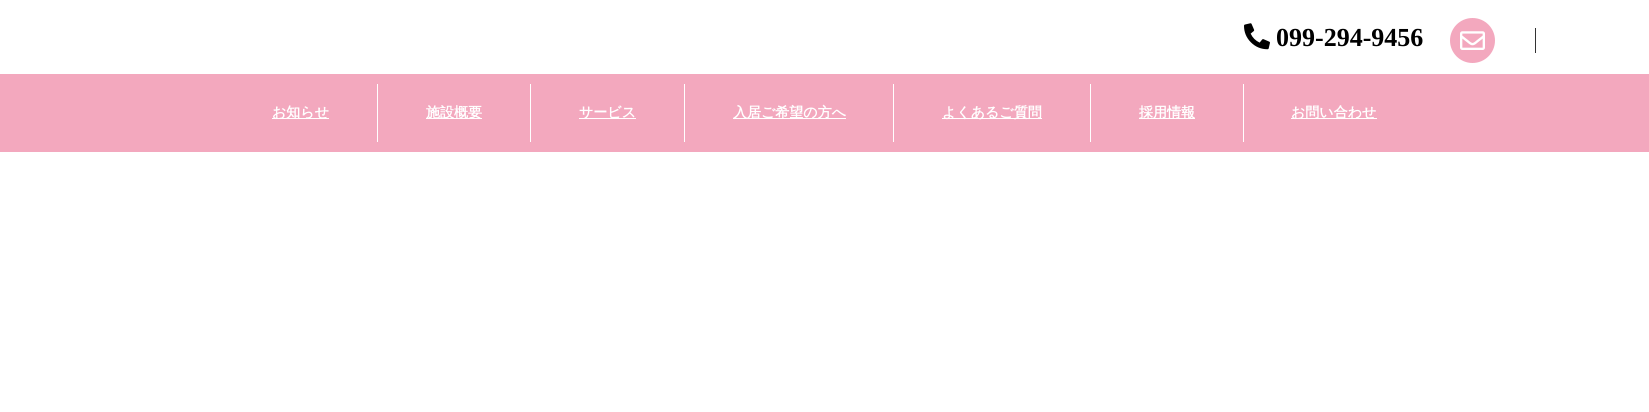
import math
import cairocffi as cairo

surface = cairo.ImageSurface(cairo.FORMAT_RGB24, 1649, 412)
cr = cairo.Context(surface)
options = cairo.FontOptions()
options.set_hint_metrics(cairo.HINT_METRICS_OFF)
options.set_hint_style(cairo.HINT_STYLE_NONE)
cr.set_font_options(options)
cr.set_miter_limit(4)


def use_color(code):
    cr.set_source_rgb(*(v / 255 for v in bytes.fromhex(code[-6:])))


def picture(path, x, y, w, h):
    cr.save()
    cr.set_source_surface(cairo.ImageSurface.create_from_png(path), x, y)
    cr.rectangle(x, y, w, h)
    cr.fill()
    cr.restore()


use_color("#ffffff")
cr.paint()
use_color("#f3a8be")
cr.rectangle(0, 74, 1649, 78)
cr.fill()
picture("img1.png", 1244, 23, 26, 27)
cr.select_font_face("Liberation Serif", cairo.FONT_SLANT_NORMAL, cairo.FONT_WEIGHT_BOLD)
cr.set_font_size(26)
use_color("#000000")
cr.move_to(1276, 46)
cr.show_text("099-294-9456")
use_color("#f3a8be")
cr.new_path()
cr.arc(1472.5, 40.5, 22.5, 0, 2 * math.pi)
cr.fill()
picture("img2.png", 1460, 31, 25, 19)
use_color("#333333")
cr.rectangle(1535, 28, 1, 25)
cr.fill()
use_color("#ffffff")
cr.rectangle(377, 84, 1, 58)
cr.fill()
cr.rectangle(272, 118, 57, 1)
cr.fill()
cr.select_font_face("WenQuanYi Zen Hei", cairo.FONT_SLANT_NORMAL, cairo.FONT_WEIGHT_BOLD)
cr.set_font_size(14)
cr.move_to(272, 117)
cr.show_text("お知らせ")
cr.rectangle(530, 84, 1, 58)
cr.fill()
cr.rectangle(426, 118, 56, 1)
cr.fill()
cr.move_to(426, 117)
cr.show_text("施設概要")
cr.rectangle(684, 84, 1, 58)
cr.fill()
cr.rectangle(579, 118, 57, 1)
cr.fill()
cr.move_to(579, 117)
cr.show_text("サービス")
cr.rectangle(893, 84, 1, 58)
cr.fill()
cr.rectangle(733, 118, 113, 1)
cr.fill()
cr.move_to(733, 117)
cr.show_text("入居ご希望の方へ")
cr.rectangle(1090, 84, 1, 58)
cr.fill()
cr.rectangle(942, 118, 100, 1)
cr.fill()
cr.move_to(942, 117)
cr.show_text("よくあるご質問")
cr.rectangle(1243, 84, 1, 58)
cr.fill()
cr.rectangle(1139, 118, 56, 1)
cr.fill()
cr.move_to(1139, 117)
cr.show_text("採用情報")
cr.rectangle(1291, 118, 86, 1)
cr.fill()
cr.move_to(1291, 117)
cr.show_text("お問い合わせ")
surface.write_to_png("result.png")
